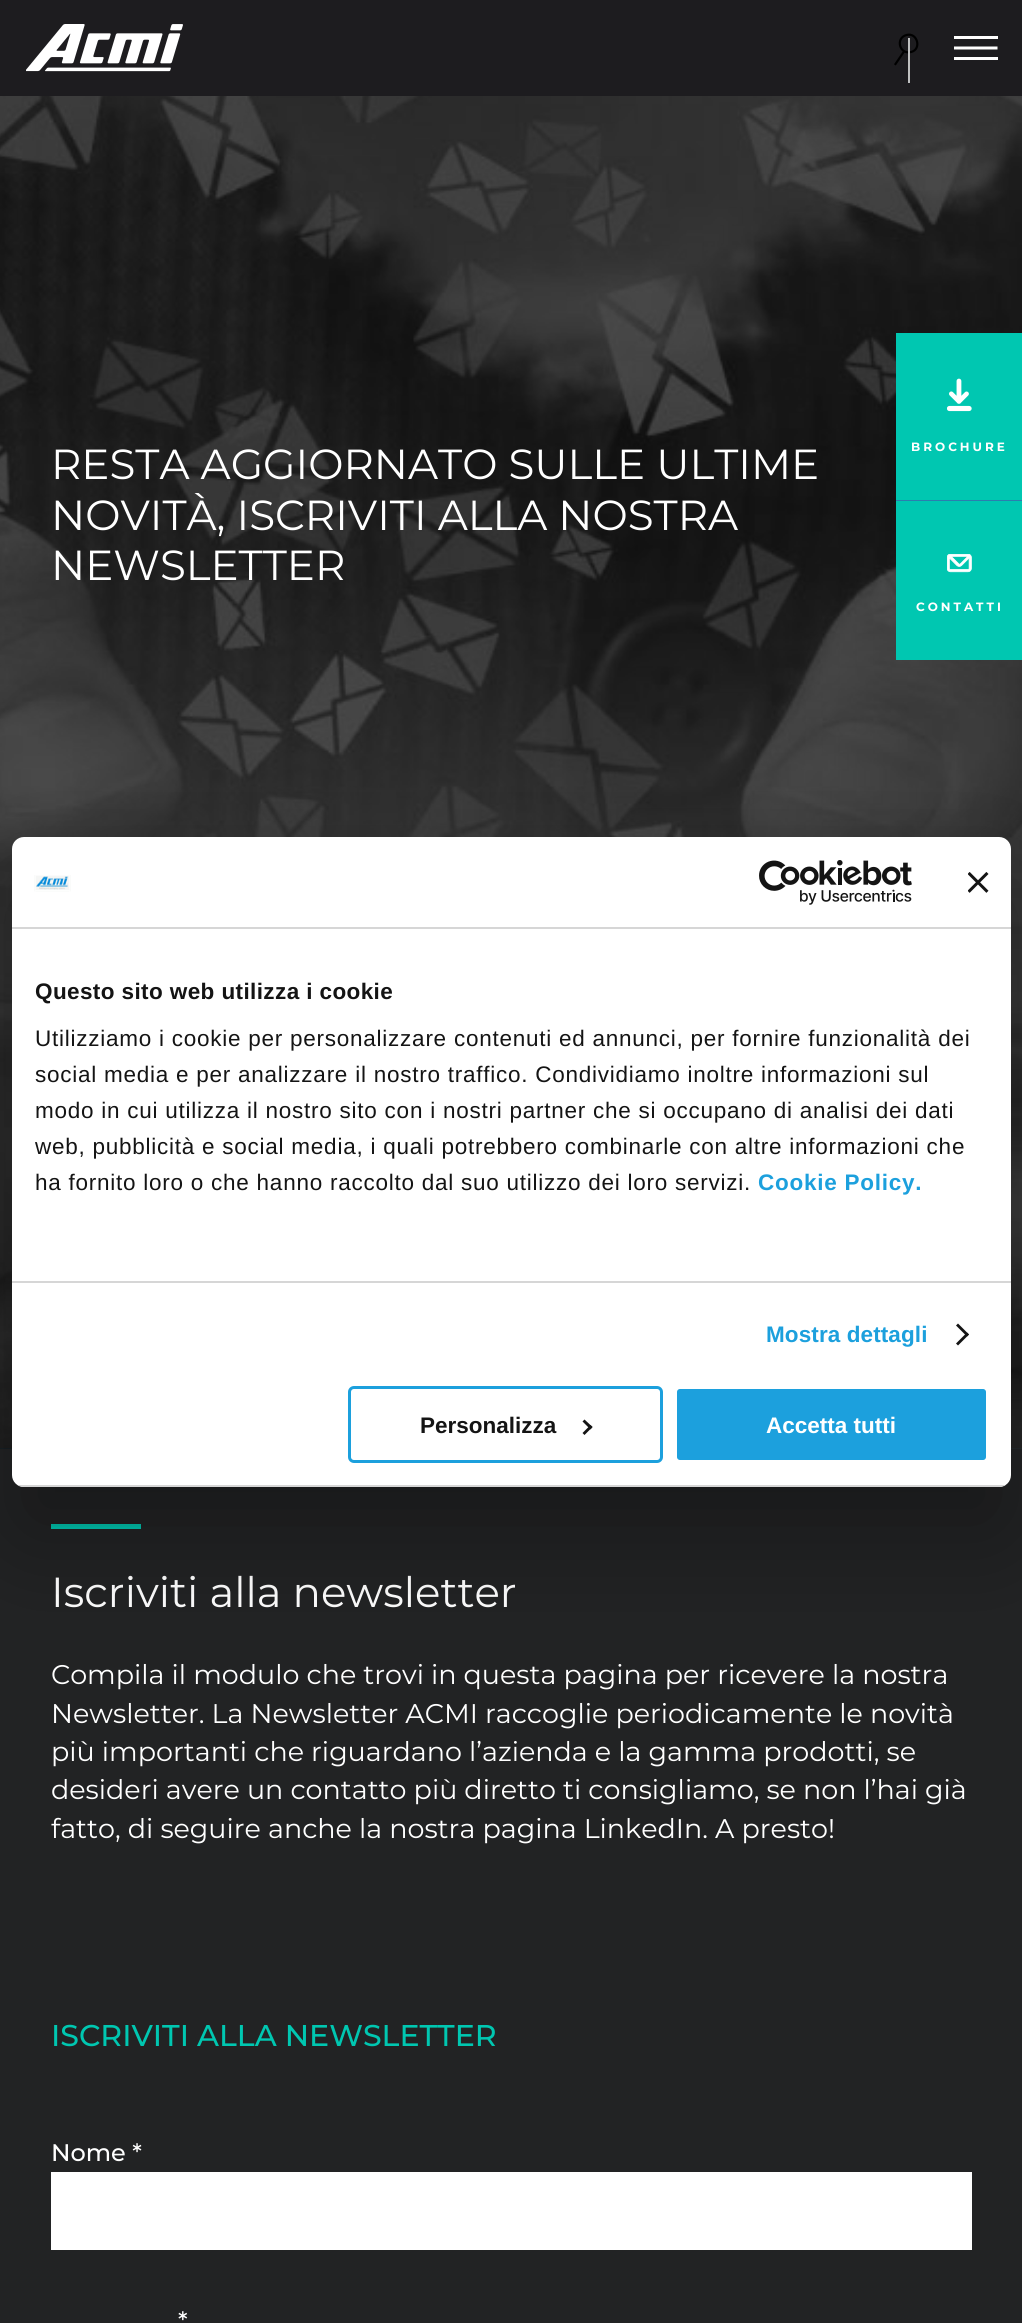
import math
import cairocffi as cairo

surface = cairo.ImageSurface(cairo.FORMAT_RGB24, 1022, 2323)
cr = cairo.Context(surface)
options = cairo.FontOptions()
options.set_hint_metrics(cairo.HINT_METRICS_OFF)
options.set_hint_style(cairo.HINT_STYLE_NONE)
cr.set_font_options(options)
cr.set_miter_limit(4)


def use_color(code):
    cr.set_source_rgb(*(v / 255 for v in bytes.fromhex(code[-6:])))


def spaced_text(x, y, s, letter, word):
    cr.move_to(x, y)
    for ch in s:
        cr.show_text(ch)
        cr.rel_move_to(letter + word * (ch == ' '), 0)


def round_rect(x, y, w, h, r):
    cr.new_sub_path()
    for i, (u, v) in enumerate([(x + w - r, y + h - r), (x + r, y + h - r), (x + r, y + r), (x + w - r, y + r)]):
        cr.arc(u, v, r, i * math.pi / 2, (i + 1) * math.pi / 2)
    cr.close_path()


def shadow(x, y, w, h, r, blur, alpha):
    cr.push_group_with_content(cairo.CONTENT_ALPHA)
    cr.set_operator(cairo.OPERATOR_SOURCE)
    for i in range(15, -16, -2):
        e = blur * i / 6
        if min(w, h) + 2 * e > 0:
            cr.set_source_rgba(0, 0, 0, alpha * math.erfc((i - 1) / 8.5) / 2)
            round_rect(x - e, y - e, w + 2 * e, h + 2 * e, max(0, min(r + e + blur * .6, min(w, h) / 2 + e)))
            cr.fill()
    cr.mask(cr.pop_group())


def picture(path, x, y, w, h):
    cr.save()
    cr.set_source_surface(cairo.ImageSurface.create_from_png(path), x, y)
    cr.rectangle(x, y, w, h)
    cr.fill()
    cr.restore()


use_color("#222324")
cr.paint()
use_color("#1d1c1f")
cr.rectangle(0, 0, 1022, 96)
cr.fill()
picture("img1.png", 26, 24, 157, 48)
cr.new_path()
cr.move_to(904, 51.5)
cr.line_to(895.5, 64)
cr.move_to(906.5, 35)
cr.curve_to(917.5, 32, 922, 49.5, 911, 52)
cr.curve_to(899.5, 55, 895, 38, 906.5, 35)
cr.close_path()
use_color("#000000")
cr.set_line_width(2.2)
cr.set_line_cap(cairo.LINE_CAP_SQUARE)
cr.stroke()
use_color("#c0c1c1")
cr.rectangle(908, 38, 2, 45)
cr.fill()
use_color("#ffffff")
cr.rectangle(954, 36, 44, 3)
cr.fill()
cr.new_path()
cr.move_to(954, 48)
cr.line_to(997.5, 48)
cr.set_line_width(3)
cr.set_line_cap(cairo.LINE_CAP_BUTT)
cr.stroke()
cr.rectangle(954, 57, 44, 3)
cr.fill()
picture("img2.png", 0, 1448, 1022, 1)
picture("img3.png", 0, 96, 1022, 1353)
cr.select_font_face("Montserrat")
cr.set_font_size(42)
cr.move_to(51, 479)
cr.show_text("RESTA AGGIORNATO SULLE ULTIME")
cr.move_to(51, 530)
cr.show_text("NOVITÀ, ISCRIVITI ALLA NOSTRA")
cr.move_to(51, 580)
cr.show_text("NEWSLETTER")
use_color("#2c7daf")
cr.rectangle(896, 500, 126, 1)
cr.fill()
use_color("#00c7b1")
cr.rectangle(896, 333, 126, 167)
cr.fill()
picture("img4.png", 947, 378, 25, 34)
cr.select_font_face("Montserrat", cairo.FONT_SLANT_NORMAL, cairo.FONT_WEIGHT_BOLD)
cr.set_font_size(12)
use_color("#ffffff")
spaced_text(911, 451, "BROCHURE", 3, 0)
use_color("#00c7b1")
cr.rectangle(896, 501, 126, 159)
cr.fill()
picture("img5.png", 947, 554, 25, 19)
use_color("#ffffff")
spaced_text(916, 611, "CONTATTI", 3, 0)
use_color("#00c7b1")
cr.rectangle(51, 1524, 90, 5)
cr.fill()
cr.select_font_face("Montserrat")
cr.set_font_size(42)
use_color("#ffffff")
cr.move_to(51, 1607)
cr.show_text("Iscriviti alla newsletter")
cr.set_font_size(27)
cr.move_to(51, 1684)
cr.show_text("Compila il modulo che trovi in questa pagina per ricevere la nostra")
cr.move_to(51, 1723)
cr.show_text("Newsletter. La Newsletter ACMI raccoglie periodicamente le novità")
cr.move_to(51, 1761)
cr.show_text("più importanti che riguardano l’azienda e la gamma prodotti, se")
cr.move_to(51, 1799)
cr.show_text("desideri avere un contatto più diretto ti consigliamo, se non l’hai già")
cr.move_to(51, 1838)
cr.show_text("fatto, di seguire anche la nostra pagina LinkedIn. A presto!")
cr.select_font_face("Montserrat Medium")
cr.set_font_size(30)
use_color("#00c7b1")
cr.move_to(51, 2046)
cr.show_text("ISCRIVITI ALLA NEWSLETTER")
cr.set_font_size(24)
use_color("#ffffff")
cr.move_to(51, 2161)
cr.show_text("Nome *")
cr.rectangle(51, 2172, 921, 78)
cr.fill()
cr.move_to(178, 2329)
cr.show_text("*")
use_color("#000000")
shadow(12, 885, 999, 650, 12, 51, 0.3)
use_color("#ffffff")
round_rect(12, 837, 999, 650, 12)
cr.fill()
use_color("#d6d6d6")
cr.rectangle(12, 927, 999, 2)
cr.fill()
picture("img6.png", 34, 875, 37, 17)
picture("img7.png", 759, 860, 153, 45)
picture("img8.png", 968, 872, 21, 21)
cr.rectangle(12, 1281, 999, 2)
cr.fill()
cr.select_font_face("Liberation Sans", cairo.FONT_SLANT_NORMAL, cairo.FONT_WEIGHT_BOLD)
cr.set_font_size(22.5)
use_color("#141414")
spaced_text(35, 999, "Questo sito web utilizza i cookie", 0.4, 0)
cr.select_font_face("Liberation Sans")
spaced_text(35, 1046, "Utilizziamo i cookie per personalizzare contenuti ed annunci, per fornire funzionalità dei", 0.75, 0)
spaced_text(35, 1082, "social media e per analizzare il nostro traffico. Condividiamo inoltre informazioni sul", 0.75, 0)
spaced_text(35, 1118, "modo in cui utilizza il nostro sito con i nostri partner che si occupano di analisi dei dati", 0.75, 0)
spaced_text(35, 1154, "web, pubblicità e social media, i quali potrebbero combinarle con altre informazioni che", 0.75, 0)
spaced_text(35, 1190, "ha fornito loro o che hanno raccolto dal suo utilizzo dei loro servizi.", 0.75, 0)
cr.select_font_face("Liberation Sans", cairo.FONT_SLANT_NORMAL, cairo.FONT_WEIGHT_BOLD)
use_color("#1ca0dd")
spaced_text(758, 1190, "Cookie Policy.", 0.75, 0)
spaced_text(766, 1342, "Mostra dettagli", 0.1, 0)
use_color("#141414")
cr.new_path()
cr.move_to(958, 1323.5)
cr.line_to(969, 1334.5)
cr.line_to(967, 1336.5)
cr.line_to(956, 1325.5)
cr.close_path()
cr.fill()
cr.new_path()
cr.move_to(967, 1332.5)
cr.line_to(969, 1334.5)
cr.line_to(958, 1345.5)
cr.line_to(956, 1343.5)
cr.close_path()
cr.fill()
cr.save()
round_rect(12, 837, 999, 650, 12)
cr.clip()
use_color("#d6d6d6")
cr.rectangle(12, 1485, 999, 2)
cr.fill()
cr.restore()
round_rect(349.5, 1387.5, 312, 74, 4.5)
use_color("#1ca0dd")
cr.stroke()
use_color("#141414")
cr.move_to(420, 1433)
cr.show_text("Personalizza")
cr.new_path()
cr.move_to(584.5, 1419.5)
cr.line_to(592.5, 1427)
cr.line_to(590.5, 1429.5)
cr.line_to(582.5, 1421.5)
cr.close_path()
cr.fill()
cr.new_path()
cr.move_to(590.5, 1425)
cr.line_to(592.5, 1427)
cr.line_to(584.5, 1435)
cr.line_to(582.5, 1433)
cr.close_path()
cr.fill()
use_color("#1ca0dd")
round_rect(675.5, 1387.5, 312, 74, 4.5)
cr.fill_preserve()
use_color("#ffffff")
cr.stroke()
cr.move_to(766, 1433)
cr.show_text("Accetta tutti")
surface.write_to_png("result.png")
